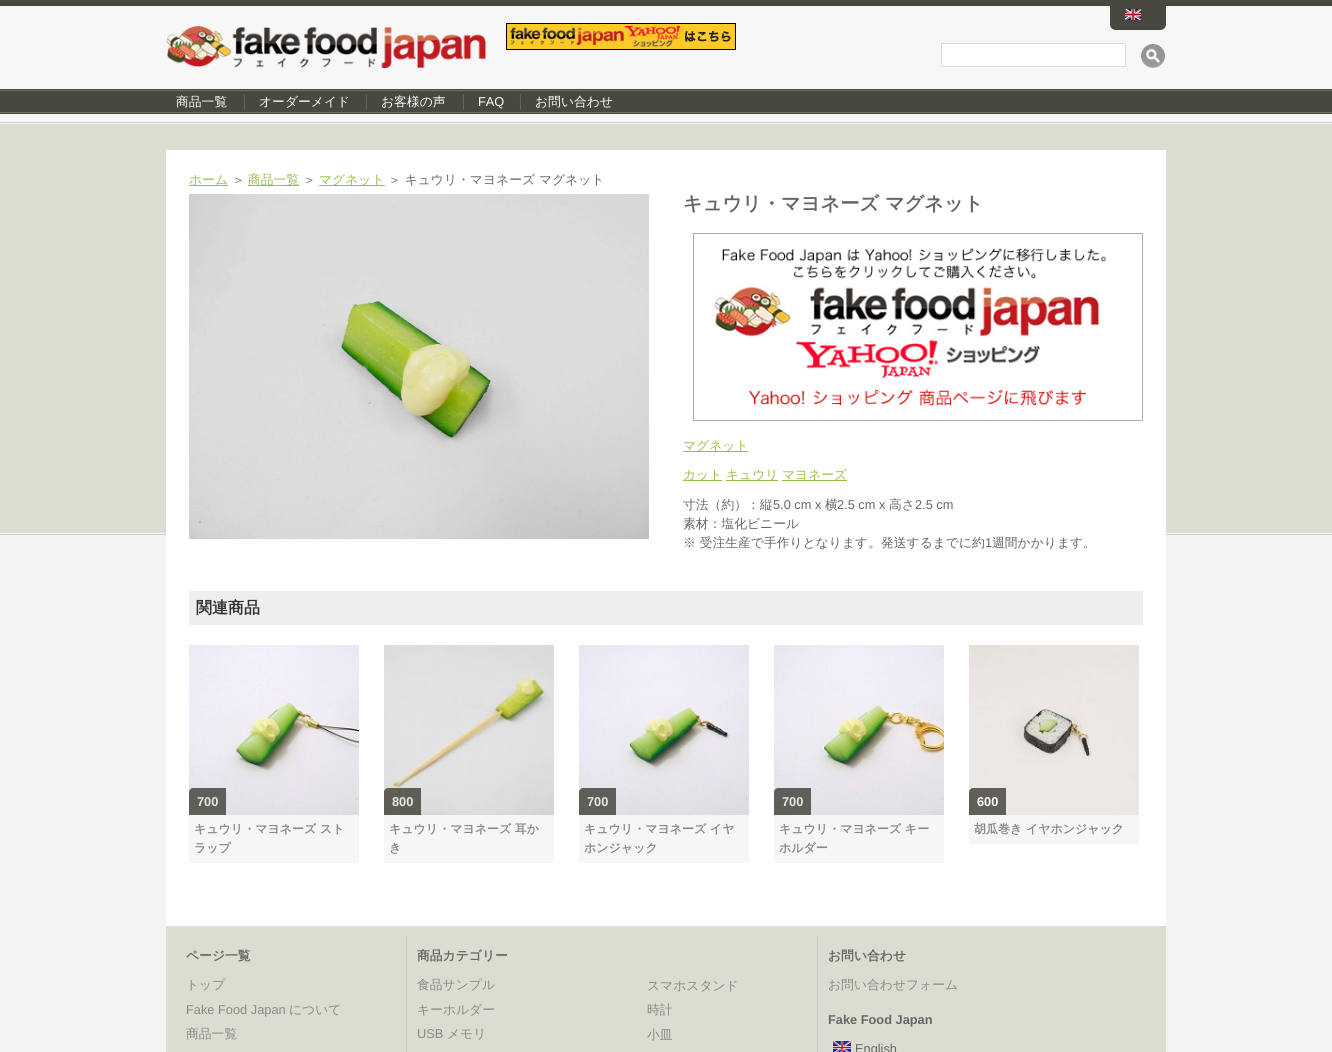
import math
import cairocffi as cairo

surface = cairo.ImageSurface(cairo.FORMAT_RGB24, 1332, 1052)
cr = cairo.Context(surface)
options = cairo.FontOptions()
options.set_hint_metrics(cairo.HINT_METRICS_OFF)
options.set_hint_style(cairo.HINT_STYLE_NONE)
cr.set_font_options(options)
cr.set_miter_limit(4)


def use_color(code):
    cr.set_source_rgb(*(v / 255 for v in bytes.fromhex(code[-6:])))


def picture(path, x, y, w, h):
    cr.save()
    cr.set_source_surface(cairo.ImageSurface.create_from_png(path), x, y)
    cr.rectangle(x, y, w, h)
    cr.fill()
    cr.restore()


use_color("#f3f3f3")
cr.paint()
picture("img1.png", 0, 6, 1332, 529)
use_color("#484740")
cr.rectangle(0, 0, 1332, 6)
cr.fill()
cr.new_path()
cr.move_to(1110, 6)
cr.line_to(1166, 6)
cr.line_to(1166, 24)
cr.curve_to(1166, 27.5, 1163.5, 30, 1160, 30)
cr.line_to(1116, 30)
cr.curve_to(1112.5, 30, 1110, 27.5, 1110, 24)
cr.close_path()
cr.fill()
picture("img2.png", 1125, 9, 16, 11)
picture("img3.png", 166, 26, 320, 42)
picture("img4.png", 506, 23, 230, 27)
use_color("#ffffff")
cr.rectangle(941.5, 43.5, 184, 23)
cr.fill_preserve()
use_color("#dddddd")
cr.set_line_width(1)
cr.stroke()
picture("img5.png", 1141, 44, 24, 24)
cr.select_font_face("WenQuanYi Zen Hei Medium")
cr.set_font_size(12.8)
use_color("#ffffff")
cr.move_to(176, 106)
cr.show_text("商品一覧")
cr.select_font_face("Liberation Sans")
use_color("#666666")
cr.move_to(241, 106)
cr.show_text("│")
cr.select_font_face("WenQuanYi Zen Hei Medium")
use_color("#ffffff")
cr.move_to(259, 106)
cr.show_text("オーダーメイド")
cr.select_font_face("Liberation Sans")
use_color("#666666")
cr.move_to(363, 106)
cr.show_text("│")
cr.select_font_face("WenQuanYi Zen Hei Medium")
use_color("#ffffff")
cr.move_to(381, 106)
cr.show_text("お客様の声")
cr.select_font_face("Liberation Sans")
use_color("#666666")
cr.move_to(460, 106)
cr.show_text("│")
use_color("#ffffff")
cr.move_to(478, 106)
cr.show_text("FAQ")
use_color("#666666")
cr.move_to(517, 106)
cr.show_text("│")
cr.select_font_face("WenQuanYi Zen Hei Medium")
use_color("#ffffff")
cr.move_to(535, 106)
cr.show_text("お問い合わせ")
cr.rectangle(166, 150, 1000, 776)
cr.fill()
use_color("#96bf48")
cr.rectangle(189, 185, 39, 1)
cr.fill()
cr.move_to(189, 184)
cr.show_text("ホーム")
use_color("#666666")
cr.move_to(232, 184)
cr.show_text("＞")
use_color("#96bf48")
cr.rectangle(248, 185, 51, 1)
cr.fill()
cr.move_to(248, 184)
cr.show_text("商品一覧")
use_color("#666666")
cr.move_to(303, 184)
cr.show_text("＞")
use_color("#96bf48")
cr.rectangle(319, 185, 66, 1)
cr.fill()
cr.move_to(319, 184)
cr.show_text("マグネット")
use_color("#666666")
cr.move_to(388, 184)
cr.show_text("＞ キュウリ・マヨネーズ マグネット")
picture("img6.png", 189, 194, 460, 345)
cr.select_font_face("WenQuanYi Zen Hei", cairo.FONT_SLANT_NORMAL, cairo.FONT_WEIGHT_BOLD)
cr.set_font_size(19.25)
cr.move_to(683, 210)
cr.show_text("キュウリ・マヨネーズ マグネット")
picture("img7.png", 693, 233, 450, 188)
use_color("#96bf48")
cr.rectangle(683, 451, 65, 1)
cr.fill()
cr.select_font_face("WenQuanYi Zen Hei Medium")
cr.set_font_size(12.8)
cr.move_to(683, 450)
cr.show_text("マグネット")
cr.rectangle(683, 480, 39, 1)
cr.fill()
cr.move_to(683, 479)
cr.show_text("カット")
cr.rectangle(726, 480, 52, 1)
cr.fill()
cr.move_to(726, 479)
cr.show_text("キュウリ")
cr.rectangle(782, 480, 65, 1)
cr.fill()
cr.move_to(782, 479)
cr.show_text("マヨネーズ")
use_color("#666666")
cr.move_to(683, 509)
cr.show_text("寸法（約）：縦")
cr.select_font_face("Liberation Sans")
cr.move_to(773, 509)
cr.show_text("5.0 cm x")
cr.select_font_face("WenQuanYi Zen Hei Medium")
cr.move_to(825, 509)
cr.show_text("横")
cr.select_font_face("Liberation Sans")
cr.move_to(837, 509)
cr.show_text("2.5 cm x")
cr.select_font_face("WenQuanYi Zen Hei Medium")
cr.move_to(889, 509)
cr.show_text("高さ")
cr.select_font_face("Liberation Sans")
cr.move_to(915, 509)
cr.show_text("2.5 cm")
cr.select_font_face("WenQuanYi Zen Hei Medium")
cr.move_to(683, 528)
cr.show_text("素材：塩化ビニール")
cr.move_to(683, 547)
cr.show_text("※ 受注生産で手作りとなります。発送するまでに約")
cr.select_font_face("Liberation Sans")
cr.move_to(985, 547)
cr.show_text("1")
cr.select_font_face("WenQuanYi Zen Hei Medium")
cr.move_to(992, 547)
cr.show_text("週間かかります。")
use_color("#eeeeee")
cr.rectangle(189, 591, 954, 34)
cr.fill()
cr.select_font_face("WenQuanYi Zen Hei", cairo.FONT_SLANT_NORMAL, cairo.FONT_WEIGHT_BOLD)
cr.set_font_size(16)
use_color("#333333")
cr.move_to(196, 613)
cr.show_text("関連商品")
picture("img8.png", 189, 645, 170, 170)
cr.set_source_rgba(0.282, 0.282, 0.251, 0.85)
cr.new_path()
cr.move_to(193, 788)
cr.line_to(226, 788)
cr.line_to(226, 815)
cr.line_to(189, 815)
cr.line_to(189, 792)
cr.curve_to(189, 790, 191, 788, 193, 788)
cr.close_path()
cr.fill()
cr.select_font_face("Liberation Sans", cairo.FONT_SLANT_NORMAL, cairo.FONT_WEIGHT_BOLD)
cr.set_font_size(12.8)
use_color("#e7e7e6")
cr.move_to(197, 806)
cr.show_text("700")
use_color("#f6f6f6")
cr.rectangle(189, 815, 170, 48)
cr.fill()
cr.select_font_face("WenQuanYi Zen Hei", cairo.FONT_SLANT_NORMAL, cairo.FONT_WEIGHT_BOLD)
cr.set_font_size(12)
use_color("#888888")
cr.move_to(194, 833)
cr.show_text("キュウリ・マヨネーズ スト")
cr.move_to(194, 852)
cr.show_text("ラップ")
picture("img9.png", 384, 645, 170, 170)
cr.set_source_rgba(0.282, 0.282, 0.251, 0.85)
cr.new_path()
cr.move_to(388, 788)
cr.line_to(421, 788)
cr.line_to(421, 815)
cr.line_to(384, 815)
cr.line_to(384, 792)
cr.curve_to(384, 790, 386, 788, 388, 788)
cr.close_path()
cr.fill()
cr.select_font_face("Liberation Sans", cairo.FONT_SLANT_NORMAL, cairo.FONT_WEIGHT_BOLD)
cr.set_font_size(12.8)
use_color("#e7e7e6")
cr.move_to(392, 806)
cr.show_text("800")
use_color("#f6f6f6")
cr.rectangle(384, 815, 170, 48)
cr.fill()
cr.select_font_face("WenQuanYi Zen Hei", cairo.FONT_SLANT_NORMAL, cairo.FONT_WEIGHT_BOLD)
cr.set_font_size(12)
use_color("#888888")
cr.move_to(389, 833)
cr.show_text("キュウリ・マヨネーズ 耳か")
cr.move_to(389, 852)
cr.show_text("き")
picture("img10.png", 579, 645, 170, 170)
cr.set_source_rgba(0.282, 0.282, 0.251, 0.85)
cr.new_path()
cr.move_to(583, 788)
cr.line_to(616, 788)
cr.line_to(616, 815)
cr.line_to(579, 815)
cr.line_to(579, 792)
cr.curve_to(579, 790, 581, 788, 583, 788)
cr.close_path()
cr.fill()
cr.select_font_face("Liberation Sans", cairo.FONT_SLANT_NORMAL, cairo.FONT_WEIGHT_BOLD)
cr.set_font_size(12.8)
use_color("#e7e7e6")
cr.move_to(587, 806)
cr.show_text("700")
use_color("#f6f6f6")
cr.rectangle(579, 815, 170, 48)
cr.fill()
cr.select_font_face("WenQuanYi Zen Hei", cairo.FONT_SLANT_NORMAL, cairo.FONT_WEIGHT_BOLD)
cr.set_font_size(12)
use_color("#888888")
cr.move_to(584, 833)
cr.show_text("キュウリ・マヨネーズ イヤ")
cr.move_to(584, 852)
cr.show_text("ホンジャック")
picture("img11.png", 774, 645, 170, 170)
cr.set_source_rgba(0.282, 0.282, 0.251, 0.85)
cr.new_path()
cr.move_to(778, 788)
cr.line_to(811, 788)
cr.line_to(811, 815)
cr.line_to(774, 815)
cr.line_to(774, 792)
cr.curve_to(774, 790, 776, 788, 778, 788)
cr.close_path()
cr.fill()
cr.select_font_face("Liberation Sans", cairo.FONT_SLANT_NORMAL, cairo.FONT_WEIGHT_BOLD)
cr.set_font_size(12.8)
use_color("#e7e7e6")
cr.move_to(782, 806)
cr.show_text("700")
use_color("#f6f6f6")
cr.rectangle(774, 815, 170, 48)
cr.fill()
cr.select_font_face("WenQuanYi Zen Hei", cairo.FONT_SLANT_NORMAL, cairo.FONT_WEIGHT_BOLD)
cr.set_font_size(12)
use_color("#888888")
cr.move_to(779, 833)
cr.show_text("キュウリ・マヨネーズ キー")
cr.move_to(779, 852)
cr.show_text("ホルダー")
picture("img12.png", 969, 645, 170, 170)
cr.set_source_rgba(0.282, 0.282, 0.251, 0.85)
cr.new_path()
cr.move_to(973, 788)
cr.line_to(1006, 788)
cr.line_to(1006, 815)
cr.line_to(969, 815)
cr.line_to(969, 792)
cr.curve_to(969, 790, 971, 788, 973, 788)
cr.close_path()
cr.fill()
cr.select_font_face("Liberation Sans", cairo.FONT_SLANT_NORMAL, cairo.FONT_WEIGHT_BOLD)
cr.set_font_size(12.8)
use_color("#ffffff")
cr.move_to(977, 806)
cr.show_text("600")
use_color("#f6f6f6")
cr.rectangle(969, 815, 170, 29)
cr.fill()
cr.select_font_face("WenQuanYi Zen Hei", cairo.FONT_SLANT_NORMAL, cairo.FONT_WEIGHT_BOLD)
cr.set_font_size(12)
use_color("#888888")
cr.move_to(974, 833)
cr.show_text("胡瓜巻き イヤホンジャック")
use_color("#dcdcd0")
cr.rectangle(166, 926, 1000, 126)
cr.fill()
cr.set_font_size(12.8)
use_color("#666666")
cr.move_to(186, 960)
cr.show_text("ページ一覧")
cr.select_font_face("WenQuanYi Zen Hei Medium")
use_color("#888888")
cr.move_to(186, 989)
cr.show_text("トップ")
cr.select_font_face("Liberation Sans")
cr.move_to(186, 1014)
cr.show_text("Fake Food Japan")
cr.select_font_face("WenQuanYi Zen Hei Medium")
cr.move_to(289, 1014)
cr.show_text("について")
cr.move_to(186, 1038)
cr.show_text("商品一覧")
use_color("#cccccc")
cr.rectangle(406, 936, 1, 116)
cr.fill()
cr.select_font_face("WenQuanYi Zen Hei", cairo.FONT_SLANT_NORMAL, cairo.FONT_WEIGHT_BOLD)
use_color("#666666")
cr.move_to(417, 960)
cr.show_text("商品カテゴリー")
cr.select_font_face("WenQuanYi Zen Hei Medium")
use_color("#888888")
cr.move_to(417, 989)
cr.show_text("食品サンプル")
cr.move_to(417, 1014)
cr.show_text("キーホルダー")
cr.select_font_face("Liberation Sans")
cr.move_to(417, 1038)
cr.show_text("USB")
cr.select_font_face("WenQuanYi Zen Hei Medium")
cr.move_to(447, 1038)
cr.show_text("メモリ")
cr.move_to(647, 990)
cr.show_text("スマホスタンド")
cr.move_to(647, 1014)
cr.show_text("時計")
cr.move_to(647, 1039)
cr.show_text("小皿")
use_color("#cccccc")
cr.rectangle(817, 936, 1, 116)
cr.fill()
cr.select_font_face("WenQuanYi Zen Hei", cairo.FONT_SLANT_NORMAL, cairo.FONT_WEIGHT_BOLD)
use_color("#666666")
cr.move_to(828, 960)
cr.show_text("お問い合わせ")
cr.select_font_face("WenQuanYi Zen Hei Medium")
use_color("#888888")
cr.move_to(828, 989)
cr.show_text("お問い合わせフォーム")
cr.select_font_face("Liberation Sans", cairo.FONT_SLANT_NORMAL, cairo.FONT_WEIGHT_BOLD)
use_color("#666666")
cr.move_to(828, 1024)
cr.show_text("Fake Food Japan")
picture("img13.png", 833, 1041, 18, 11)
cr.select_font_face("Liberation Sans")
cr.move_to(855, 1053)
cr.show_text("English")
surface.write_to_png("result.png")
